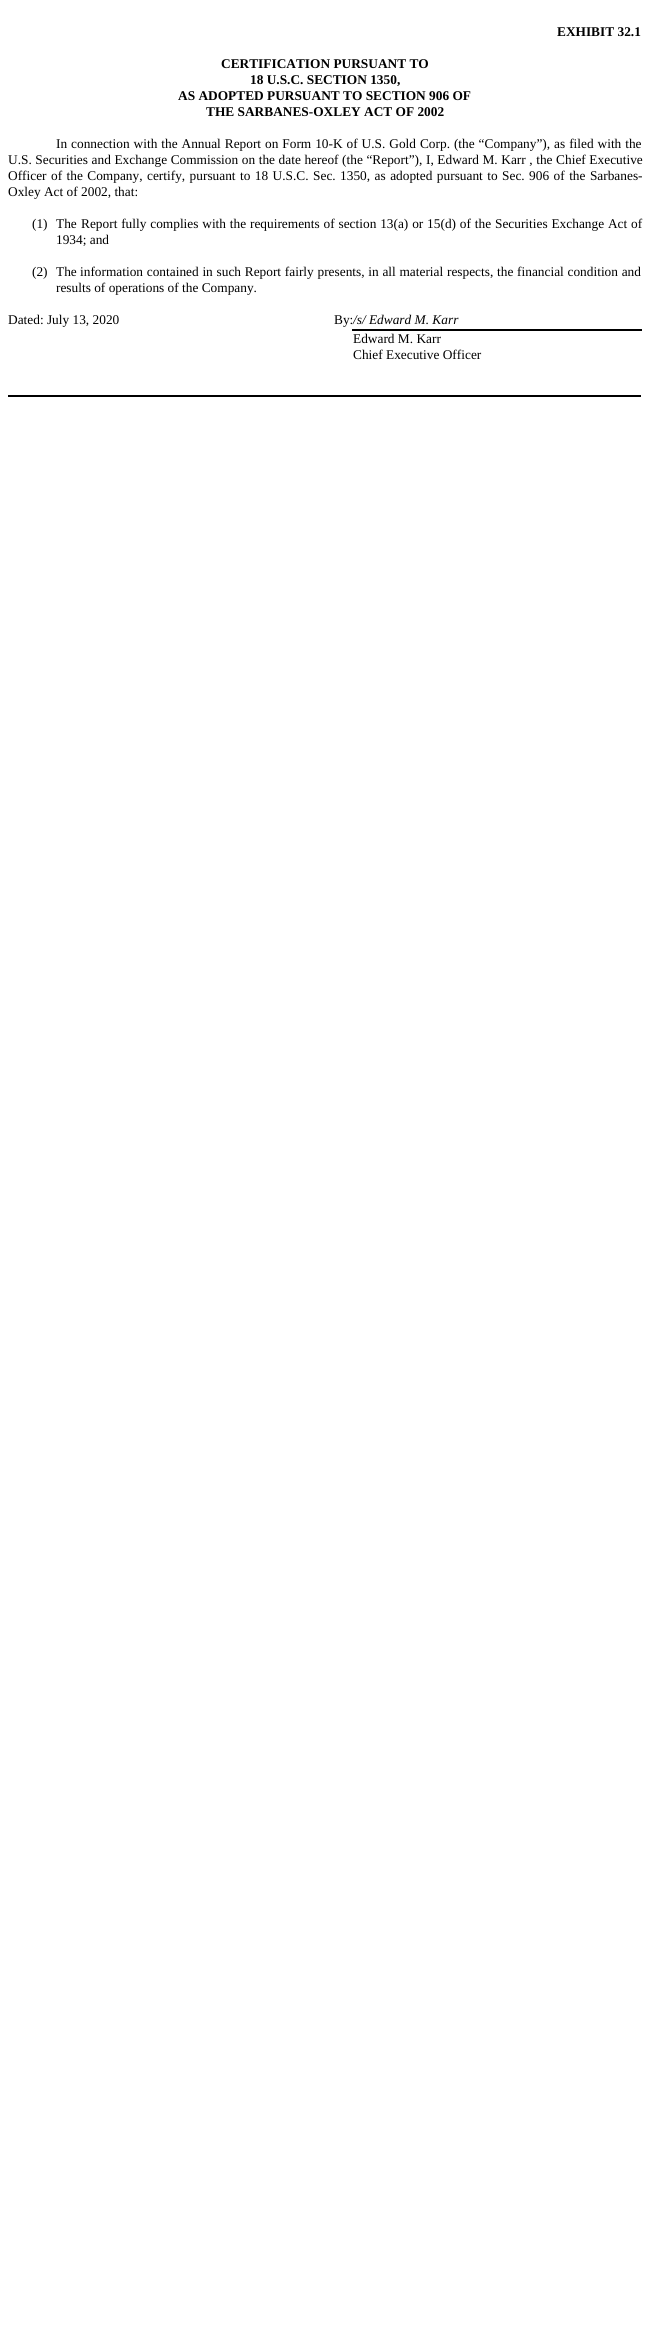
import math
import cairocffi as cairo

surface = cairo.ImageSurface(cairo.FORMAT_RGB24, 649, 2352)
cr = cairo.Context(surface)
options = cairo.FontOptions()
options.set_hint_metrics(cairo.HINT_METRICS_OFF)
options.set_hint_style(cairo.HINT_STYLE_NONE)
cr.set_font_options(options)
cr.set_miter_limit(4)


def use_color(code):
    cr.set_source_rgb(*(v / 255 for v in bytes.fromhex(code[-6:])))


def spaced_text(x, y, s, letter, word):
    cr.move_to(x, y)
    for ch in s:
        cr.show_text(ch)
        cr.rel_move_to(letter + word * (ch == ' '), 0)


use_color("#ffffff")
cr.paint()
cr.select_font_face("Liberation Serif", cairo.FONT_SLANT_NORMAL, cairo.FONT_WEIGHT_BOLD)
cr.set_font_size(13.35)
use_color("#000000")
cr.move_to(557, 36)
cr.show_text("EXHIBIT 32.1")
cr.move_to(221, 68)
cr.show_text("CERTIFICATION PURSUANT TO")
cr.move_to(250, 84)
cr.show_text("18 U.S.C. SECTION 1350,")
cr.move_to(178, 100)
cr.show_text("AS ADOPTED PURSUANT TO SECTION 906 OF")
cr.move_to(206, 116)
cr.show_text("THE SARBANES-OXLEY ACT OF 2002")
cr.select_font_face("Liberation Serif")
spaced_text(56, 148, "In connection with the Annual Report on Form 10-K of U.S. Gold Corp. (the “Company”), as filed with the", 0, 0.6)
spaced_text(8, 164, "U.S. Securities and Exchange Commission on the date hereof (the “Report”), I, Edward M. Karr , the Chief Executive", 0, 0.25)
spaced_text(8, 180, "Officer of the Company, certify, pursuant to 18 U.S.C. Sec. 1350, as adopted pursuant to Sec. 906 of the Sarbanes-", 0, 1.1)
cr.move_to(8, 196)
cr.show_text("Oxley Act of 2002, that:")
cr.move_to(32, 228)
cr.show_text("(1)")
cr.move_to(56, 228)
cr.show_text("The")
spaced_text(81, 228, "Report fully complies with the requirements of section 13(a) or 15(d) of the Securities Exchange Act of", 0, 0.5)
cr.move_to(56, 244)
cr.show_text("1934; and")
cr.move_to(32, 276)
cr.show_text("(2)")
cr.move_to(56, 276)
cr.show_text("The")
spaced_text(80, 276, "information contained in such Report fairly presents, in all material respects, the financial condition and", 0, 0.4)
cr.move_to(56, 292)
cr.show_text("results of operations of the Company.")
cr.move_to(8, 324)
cr.show_text("Dated: July 13, 2020")
cr.move_to(334, 324)
cr.show_text("By:")
cr.rectangle(352, 329, 290, 2)
cr.fill()
cr.select_font_face("Liberation Serif", cairo.FONT_SLANT_ITALIC)
cr.move_to(353, 324)
cr.show_text("/s/ Edward M. Karr")
cr.select_font_face("Liberation Serif")
cr.move_to(353, 343)
cr.show_text("Edward M. Karr")
cr.move_to(353, 359)
cr.show_text("Chief Executive Officer")
cr.rectangle(8, 395, 633, 2)
cr.fill()
surface.write_to_png("result.png")
